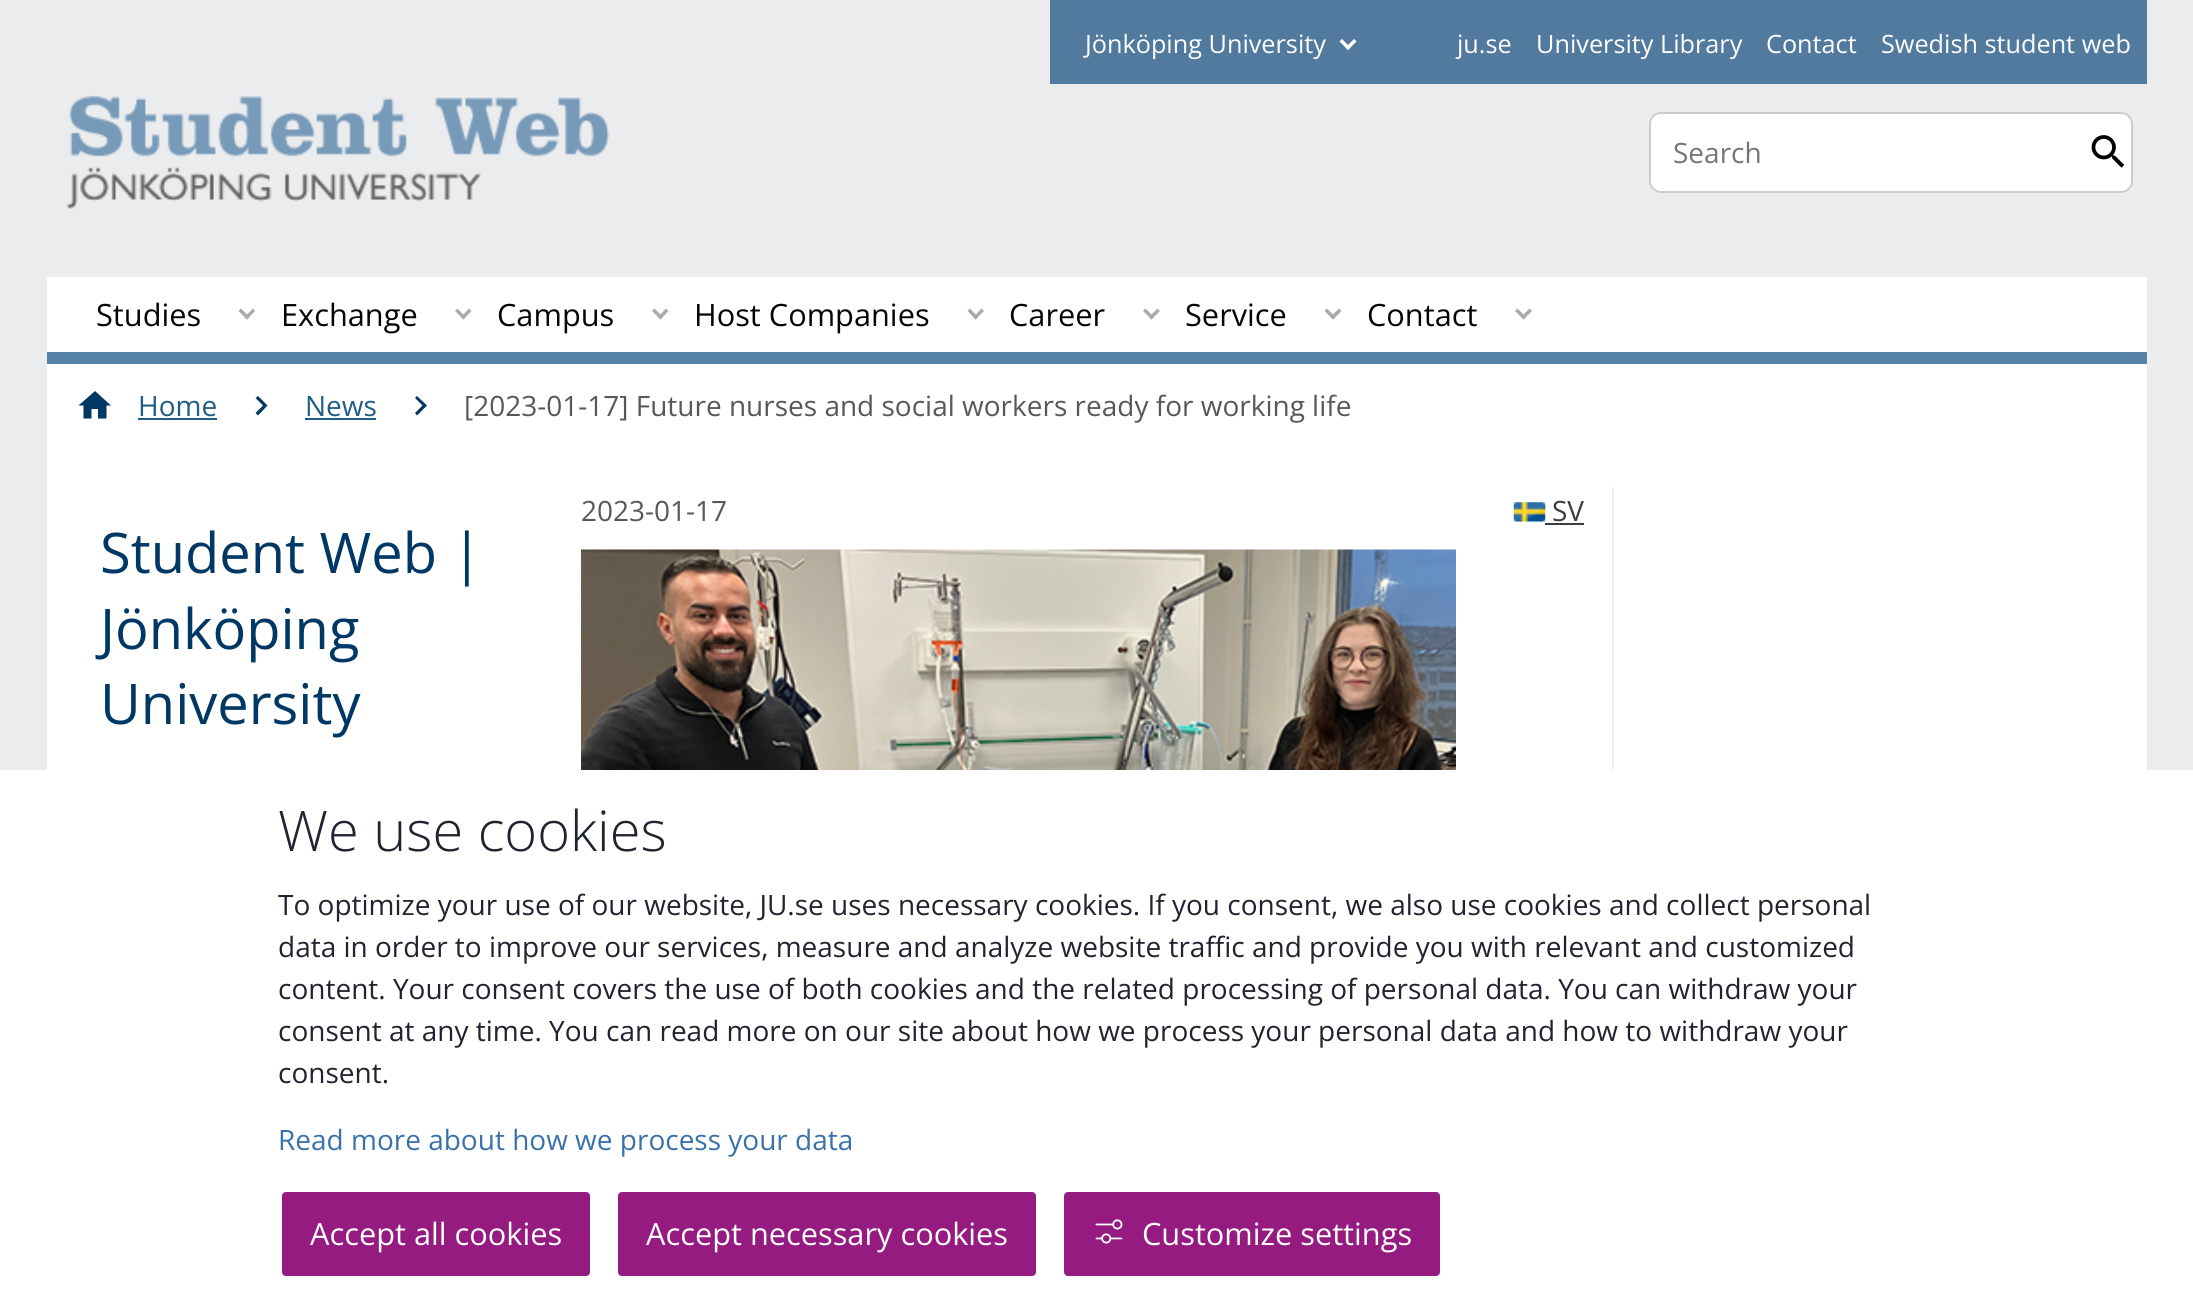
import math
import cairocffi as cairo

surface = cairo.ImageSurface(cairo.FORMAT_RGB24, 2193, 1313)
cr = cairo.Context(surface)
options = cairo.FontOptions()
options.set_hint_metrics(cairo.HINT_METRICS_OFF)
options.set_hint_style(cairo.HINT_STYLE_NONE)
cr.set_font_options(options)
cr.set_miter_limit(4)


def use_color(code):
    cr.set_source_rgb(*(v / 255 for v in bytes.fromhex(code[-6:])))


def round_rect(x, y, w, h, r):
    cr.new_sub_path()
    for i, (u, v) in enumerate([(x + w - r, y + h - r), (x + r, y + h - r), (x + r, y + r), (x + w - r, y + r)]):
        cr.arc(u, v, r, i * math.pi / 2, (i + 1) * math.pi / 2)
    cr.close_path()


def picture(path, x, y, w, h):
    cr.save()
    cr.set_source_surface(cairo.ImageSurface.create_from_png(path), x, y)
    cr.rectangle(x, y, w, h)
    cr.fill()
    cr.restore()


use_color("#eaecee")
cr.paint()
use_color("#5782a8")
cr.rectangle(47, 352, 2100, 12)
cr.fill()
use_color("#517a9e")
cr.rectangle(1050, 0, 1097, 84)
cr.fill()
cr.select_font_face("Open Sans")
cr.set_font_size(25.25)
use_color("#ffffff")
cr.move_to(1085, 53)
cr.show_text("Jönköping University")
cr.new_path()
cr.move_to(1345.5, 47.5)
cr.line_to(1354, 39)
cr.line_to(1356.5, 41.5)
cr.line_to(1348, 50)
cr.close_path()
cr.fill()
cr.new_path()
cr.move_to(1339.5, 41.5)
cr.line_to(1342, 39)
cr.line_to(1350.5, 47.5)
cr.line_to(1348, 50)
cr.close_path()
cr.fill()
cr.move_to(1457, 53)
cr.show_text("ju.se")
cr.move_to(1536, 53)
cr.show_text("University Library")
cr.move_to(1766, 53)
cr.show_text("Contact")
cr.move_to(1881, 53)
cr.show_text("Swedish student web")
picture("img1.png", 66, 95, 544, 114)
round_rect(1650, 113, 482, 79, 11)
cr.fill_preserve()
use_color("#cccccc")
cr.stroke()
cr.set_font_size(28)
use_color("#757575")
cr.move_to(1673, 163)
cr.show_text("Search")
picture("img2.png", 2091, 135, 34, 33)
use_color("#ffffff")
cr.rectangle(47, 277, 2100, 75)
cr.fill()
cr.set_font_size(30.75)
use_color("#050505")
cr.move_to(96, 326)
cr.show_text("Studies")
use_color("#aaaaaa")
cr.new_path()
cr.move_to(244.5, 317)
cr.line_to(253, 308.5)
cr.line_to(255, 311)
cr.line_to(247, 319.5)
cr.close_path()
cr.fill()
cr.new_path()
cr.move_to(238.5, 311)
cr.line_to(241, 308.5)
cr.line_to(249.5, 317)
cr.line_to(247, 319.5)
cr.close_path()
cr.fill()
use_color("#050505")
cr.move_to(281, 326)
cr.show_text("Exchange")
use_color("#aaaaaa")
cr.new_path()
cr.move_to(461, 317)
cr.line_to(469, 308.5)
cr.line_to(471.5, 311)
cr.line_to(463.5, 319.5)
cr.close_path()
cr.fill()
cr.new_path()
cr.move_to(455, 311)
cr.line_to(457.5, 308.5)
cr.line_to(465.5, 317)
cr.line_to(463.5, 319.5)
cr.close_path()
cr.fill()
use_color("#050505")
cr.move_to(497, 326)
cr.show_text("Campus")
use_color("#aaaaaa")
cr.new_path()
cr.move_to(658, 317)
cr.line_to(666, 308.5)
cr.line_to(668.5, 311)
cr.line_to(660.5, 319.5)
cr.close_path()
cr.fill()
cr.new_path()
cr.move_to(652, 311)
cr.line_to(654.5, 308.5)
cr.line_to(663, 317)
cr.line_to(660.5, 319.5)
cr.close_path()
cr.fill()
use_color("#050505")
cr.move_to(694, 326)
cr.show_text("Host Companies")
use_color("#aaaaaa")
cr.new_path()
cr.move_to(973.5, 317)
cr.line_to(981.5, 308.5)
cr.line_to(984, 311)
cr.line_to(975.5, 319.5)
cr.close_path()
cr.fill()
cr.new_path()
cr.move_to(967.5, 311)
cr.line_to(970, 308.5)
cr.line_to(978, 317)
cr.line_to(975.5, 319.5)
cr.close_path()
cr.fill()
use_color("#050505")
cr.move_to(1009, 326)
cr.show_text("Career")
use_color("#aaaaaa")
cr.new_path()
cr.move_to(1149, 317)
cr.line_to(1157.5, 308.5)
cr.line_to(1160, 311)
cr.line_to(1151.5, 319.5)
cr.close_path()
cr.fill()
cr.new_path()
cr.move_to(1143, 311)
cr.line_to(1145.5, 308.5)
cr.line_to(1154, 317)
cr.line_to(1151.5, 319.5)
cr.close_path()
cr.fill()
use_color("#050505")
cr.move_to(1185, 326)
cr.show_text("Service")
use_color("#aaaaaa")
cr.new_path()
cr.move_to(1330.5, 317)
cr.line_to(1339, 308.5)
cr.line_to(1341.5, 311)
cr.line_to(1333, 319.5)
cr.close_path()
cr.fill()
cr.new_path()
cr.move_to(1324.5, 311)
cr.line_to(1327, 308.5)
cr.line_to(1335.5, 317)
cr.line_to(1333, 319.5)
cr.close_path()
cr.fill()
use_color("#050505")
cr.move_to(1367, 326)
cr.show_text("Contact")
use_color("#aaaaaa")
cr.new_path()
cr.move_to(1521, 317)
cr.line_to(1529.5, 308.5)
cr.line_to(1532, 311)
cr.line_to(1523.5, 319.5)
cr.close_path()
cr.fill()
cr.new_path()
cr.move_to(1515, 311)
cr.line_to(1517.5, 308.5)
cr.line_to(1526, 317)
cr.line_to(1523.5, 319.5)
cr.close_path()
cr.fill()
use_color("#ffffff")
cr.rectangle(47, 364, 2100, 406)
cr.fill()
cr.set_font_size(28)
use_color("#1f5d86")
cr.move_to(138, 416)
cr.show_text("Home")
use_color("#003865")
cr.new_path()
cr.move_to(91.5, 418.5)
cr.line_to(83.5, 418.5)
cr.line_to(83.5, 405.5)
cr.line_to(78.5, 405.5)
cr.line_to(95, 391)
cr.line_to(111, 405.5)
cr.line_to(106.5, 405.5)
cr.line_to(106.5, 418.5)
cr.line_to(98, 418.5)
cr.line_to(98, 409)
cr.line_to(91.5, 409)
cr.close_path()
cr.fill()
use_color("#1f5d86")
cr.rectangle(138, 418, 79, 2)
cr.fill()
cr.move_to(305, 416)
cr.show_text("News")
use_color("#003865")
cr.new_path()
cr.move_to(258, 396)
cr.line_to(267.5, 405.5)
cr.line_to(258, 415.5)
cr.line_to(255.5, 413)
cr.line_to(263, 405.5)
cr.line_to(255.5, 398)
cr.close_path()
cr.fill()
use_color("#1f5d86")
cr.rectangle(305, 418, 71, 2)
cr.fill()
use_color("#585857")
cr.move_to(464, 416)
cr.show_text("[2023-01-17] Future nurses and social workers ready for working life")
use_color("#003865")
cr.new_path()
cr.move_to(417, 396)
cr.line_to(427, 405.5)
cr.line_to(417, 415.5)
cr.line_to(415, 413)
cr.line_to(422.5, 405.5)
cr.line_to(415, 398)
cr.close_path()
cr.fill()
use_color("#efefef")
cr.rectangle(1612, 487, 2, 283)
cr.fill()
use_color("#585857")
cr.move_to(581, 521)
cr.show_text("2023-01-17")
picture("img3.png", 581, 549, 875, 221)
picture("img4.png", 1513, 502, 33, 20)
use_color("#3c3c3c")
cr.move_to(1552, 521)
cr.show_text("SV")
cr.rectangle(1545, 523, 39, 2)
cr.fill()
cr.set_font_size(56)
use_color("#003865")
cr.move_to(100, 573)
cr.show_text("Student Web |")
cr.move_to(100, 649)
cr.show_text("Jönköping")
cr.move_to(100, 724)
cr.show_text("University")
use_color("#ffffff")
cr.rectangle(0, 770, 2193, 543)
cr.fill()
cr.select_font_face("Open Sans Light")
use_color("#202330")
cr.move_to(278, 851)
cr.show_text("We use cookies")
cr.select_font_face("Open Sans")
cr.set_font_size(28)
cr.move_to(278, 915)
cr.show_text("To optimize your use of our website, JU.se uses necessary cookies. If you consent, we also use cookies and collect personal")
cr.move_to(278, 957)
cr.show_text("data in order to improve our services, measure and analyze website traffic and provide you with relevant and customized")
cr.move_to(278, 999)
cr.show_text("content. Your consent covers the use of both cookies and the related processing of personal data. You can withdraw your")
cr.move_to(278, 1041)
cr.show_text("consent at any time. You can read more on our site about how we process your personal data and how to withdraw your")
cr.move_to(278, 1083)
cr.show_text("consent.")
use_color("#3a71aa")
cr.move_to(278, 1150)
cr.show_text("Read more about how we process your data")
use_color("#961b81")
round_rect(282, 1192, 308, 84, 4)
cr.fill()
cr.set_font_size(30.75)
use_color("#ffffff")
cr.move_to(310, 1245)
cr.show_text("Accept all cookies")
use_color("#961b81")
round_rect(618, 1192, 418, 84, 4)
cr.fill()
use_color("#ffffff")
cr.move_to(646, 1245)
cr.show_text("Accept necessary cookies")
use_color("#961b81")
round_rect(1064, 1192, 376, 84, 4)
cr.fill()
picture("img5.png", 1095, 1219, 28, 25)
use_color("#ffffff")
cr.move_to(1142, 1245)
cr.show_text("Customize settings")
surface.write_to_png("result.png")
